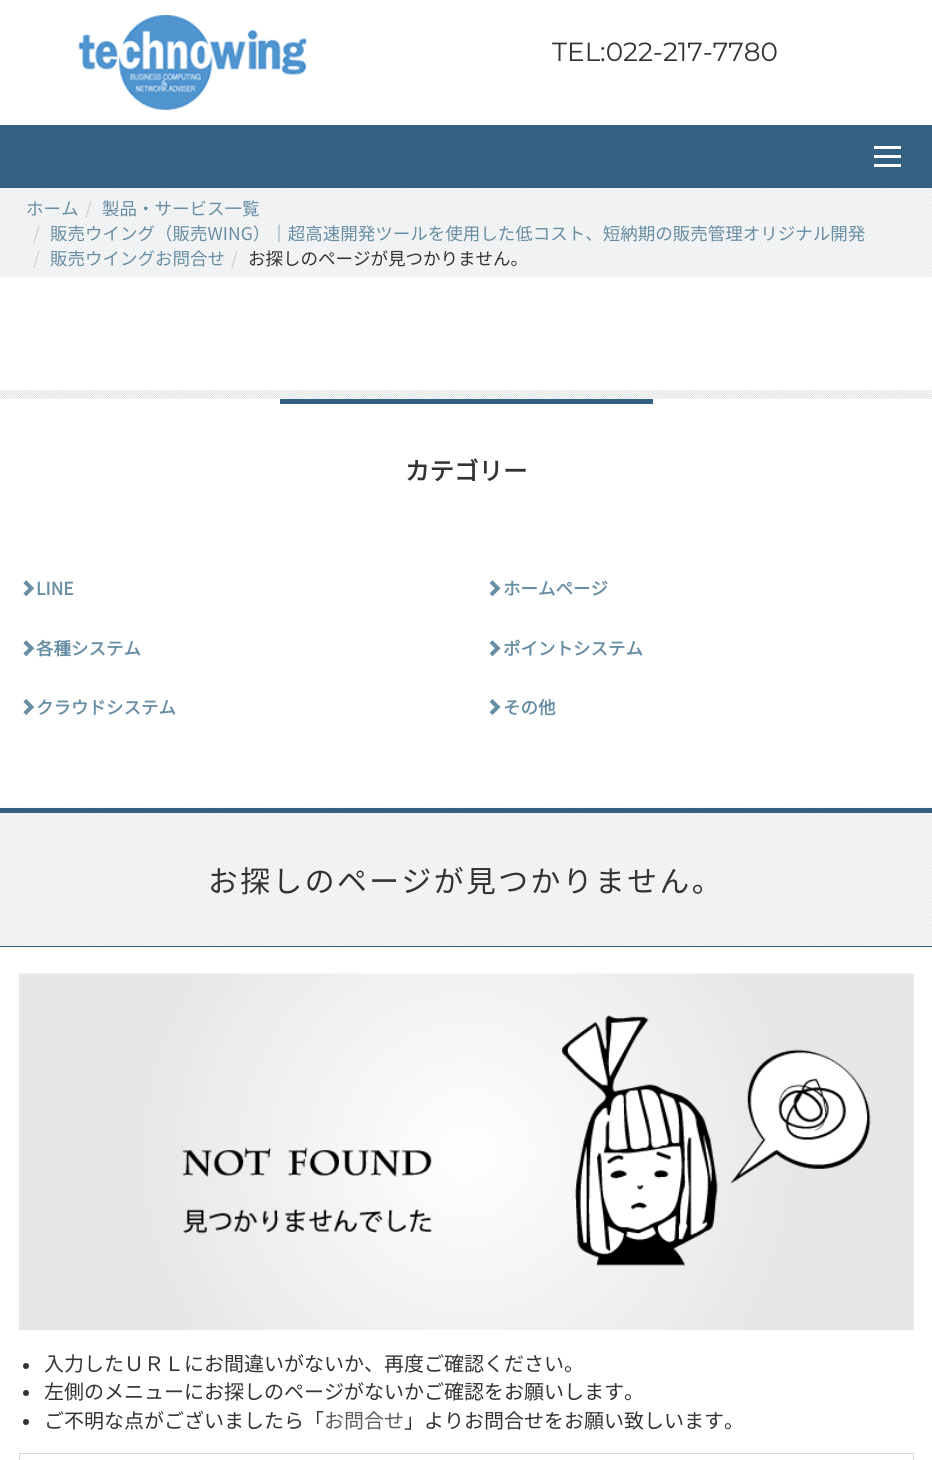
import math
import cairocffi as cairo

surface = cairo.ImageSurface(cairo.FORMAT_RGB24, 932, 1460)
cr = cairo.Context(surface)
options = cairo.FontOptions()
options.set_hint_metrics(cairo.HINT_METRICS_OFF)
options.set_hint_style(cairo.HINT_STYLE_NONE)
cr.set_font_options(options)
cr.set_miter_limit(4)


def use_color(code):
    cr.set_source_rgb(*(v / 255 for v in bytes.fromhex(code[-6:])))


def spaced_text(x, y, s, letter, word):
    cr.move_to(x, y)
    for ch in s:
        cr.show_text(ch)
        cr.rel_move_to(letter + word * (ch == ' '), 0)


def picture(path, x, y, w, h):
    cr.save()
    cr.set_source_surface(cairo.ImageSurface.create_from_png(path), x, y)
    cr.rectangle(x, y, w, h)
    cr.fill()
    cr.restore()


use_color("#ffffff")
cr.paint()
picture("img1.png", 78, 15, 229, 95)
cr.select_font_face("Montserrat Thin")
cr.set_font_size(26.25)
use_color("#333333")
cr.move_to(552, 61)
cr.show_text("TEL:022-217-7780")
use_color("#346181")
cr.rectangle(0, 125, 932, 63)
cr.fill()
use_color("#ffffff")
cr.rectangle(874, 146, 27, 3)
cr.fill()
cr.rectangle(874, 155, 27, 3)
cr.fill()
cr.rectangle(874, 164, 27, 3)
cr.fill()
picture("img2.png", 0, 188, 932, 90)
cr.select_font_face("Noto Sans JP Thin")
cr.set_font_size(17.5)
use_color("#688ea4")
cr.move_to(26, 215)
cr.show_text("ホーム")
use_color("#cccccc")
cr.move_to(85, 215)
cr.show_text("/")
use_color("#688ea4")
cr.move_to(102, 215)
cr.show_text("製品・サービス一覧")
use_color("#cccccc")
cr.move_to(33, 240)
cr.show_text("/")
use_color("#688ea4")
cr.move_to(50, 240)
cr.show_text("販売ウイング（販売WING）｜超高速開発ツールを使用した低コスト、短納期の販売管理オリジナル開発")
use_color("#cccccc")
cr.move_to(33, 265)
cr.show_text("/")
use_color("#688ea4")
cr.move_to(50, 265)
cr.show_text("販売ウイングお問合せ")
use_color("#cccccc")
cr.move_to(231, 265)
cr.show_text("/")
use_color("#333333")
cr.move_to(248, 265)
cr.show_text("お探しのページが見つかりません。")
picture("img3.png", 0, 390, 932, 9)
use_color("#346181")
cr.rectangle(280, 399, 373, 5)
cr.fill()
cr.select_font_face("Noto Sans JP", cairo.FONT_SLANT_NORMAL, cairo.FONT_WEIGHT_BOLD)
cr.set_font_size(24.5)
use_color("#333333")
cr.move_to(405, 480)
cr.show_text("カテゴリー")
picture("img4.png", 23, 580, 12, 17)
cr.set_font_size(17.5)
use_color("#688ea4")
cr.move_to(36, 595)
cr.show_text("LINE")
picture("img5.png", 489, 580, 12, 17)
cr.move_to(503, 595)
cr.show_text("ホームページ")
picture("img4.png", 23, 640, 12, 17)
cr.move_to(36, 655)
cr.show_text("各種システム")
picture("img5.png", 489, 640, 12, 17)
cr.move_to(503, 655)
cr.show_text("ポイントシステム")
picture("img6.png", 23, 699, 12, 16)
cr.move_to(36, 714)
cr.show_text("クラウドシステム")
picture("img7.png", 489, 699, 12, 16)
cr.move_to(503, 714)
cr.show_text("その他")
picture("img8.png", 0, 807, 932, 141)
use_color("#346181")
cr.rectangle(0, 808, 932, 5)
cr.fill()
cr.rectangle(0, 946, 932, 1)
cr.fill()
cr.select_font_face("Noto Sans JP Thin")
cr.set_font_size(29.75)
use_color("#333333")
spaced_text(208, 892, "お探しのページが見つかりません。", 2.5, 0)
picture("img9.png", 18, 973, 896, 357)
cr.arc(26, 1366, 3, 0, 2 * math.pi)
cr.fill()
cr.set_font_size(20)
cr.move_to(44, 1371)
cr.show_text("入力したＵＲＬにお間違いがないか、再度ご確認ください。")
cr.new_path()
cr.arc(26, 1393, 3, 0, 2 * math.pi)
cr.fill()
cr.move_to(44, 1399)
cr.show_text("左側のメニューにお探しのページがないかご確認をお願いします。")
cr.new_path()
cr.arc(26, 1422, 3, 0, 2 * math.pi)
cr.fill()
cr.move_to(44, 1428)
cr.show_text("ご不明な点がございましたら「")
use_color("#5d5d5d")
cr.move_to(324, 1428)
cr.show_text("お問合せ")
use_color("#333333")
cr.move_to(404, 1428)
cr.show_text("」よりお問合せをお願い致しいます。")
cr.rectangle(19.5, 1453.5, 894, 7)
use_color("#dad7d1")
cr.set_line_width(1)
cr.stroke()
surface.write_to_png("result.png")
